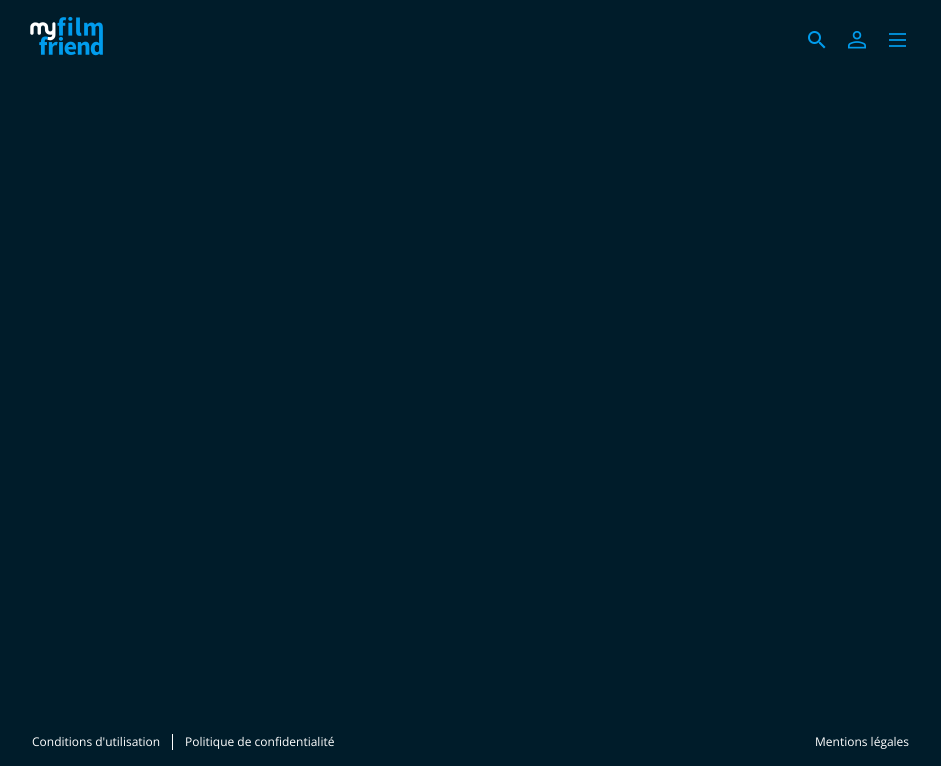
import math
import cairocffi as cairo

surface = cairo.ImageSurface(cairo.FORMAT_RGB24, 941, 766)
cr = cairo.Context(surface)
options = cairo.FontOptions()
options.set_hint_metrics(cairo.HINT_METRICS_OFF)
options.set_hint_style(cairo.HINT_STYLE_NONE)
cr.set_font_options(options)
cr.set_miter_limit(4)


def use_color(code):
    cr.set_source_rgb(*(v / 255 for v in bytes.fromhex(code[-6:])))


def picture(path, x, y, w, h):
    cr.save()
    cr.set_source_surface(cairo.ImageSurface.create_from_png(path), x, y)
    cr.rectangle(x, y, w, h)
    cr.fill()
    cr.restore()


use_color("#001c2a")
cr.paint()
picture("img1.png", 30, 16, 73, 40)
picture("img2.png", 808, 31, 18, 18)
picture("img3.png", 848, 31, 18, 18)
use_color("#0089d0")
cr.rectangle(889, 33, 17, 2)
cr.fill()
cr.rectangle(889, 39, 17, 2)
cr.fill()
cr.rectangle(889, 45, 17, 2)
cr.fill()
cr.select_font_face("Open Sans")
cr.set_font_size(12)
use_color("#ffffff")
cr.move_to(32, 746)
cr.show_text("Conditions d'utilisation")
cr.rectangle(172, 734, 1, 16)
cr.fill()
cr.move_to(185, 746)
cr.show_text("Politique de confidentialité")
cr.move_to(815, 746)
cr.show_text("Mentions légales")
surface.write_to_png("result.png")
